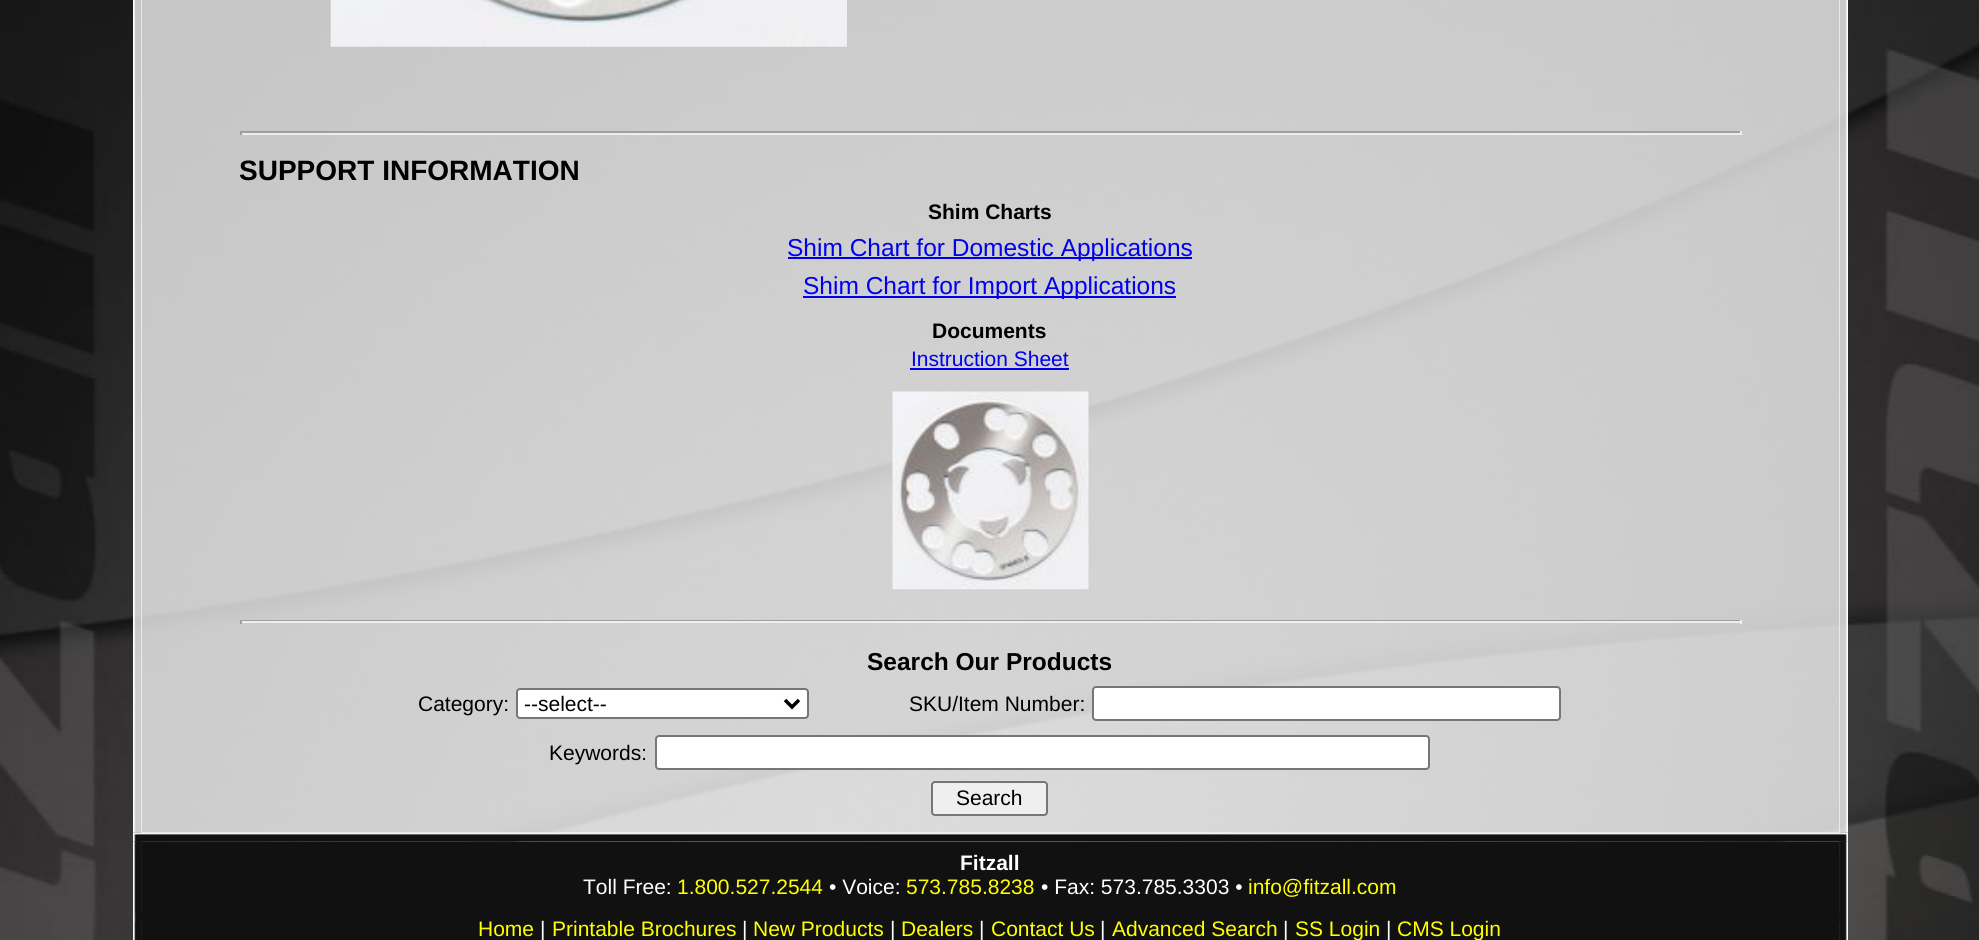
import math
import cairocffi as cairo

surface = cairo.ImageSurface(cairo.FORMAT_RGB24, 1979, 940)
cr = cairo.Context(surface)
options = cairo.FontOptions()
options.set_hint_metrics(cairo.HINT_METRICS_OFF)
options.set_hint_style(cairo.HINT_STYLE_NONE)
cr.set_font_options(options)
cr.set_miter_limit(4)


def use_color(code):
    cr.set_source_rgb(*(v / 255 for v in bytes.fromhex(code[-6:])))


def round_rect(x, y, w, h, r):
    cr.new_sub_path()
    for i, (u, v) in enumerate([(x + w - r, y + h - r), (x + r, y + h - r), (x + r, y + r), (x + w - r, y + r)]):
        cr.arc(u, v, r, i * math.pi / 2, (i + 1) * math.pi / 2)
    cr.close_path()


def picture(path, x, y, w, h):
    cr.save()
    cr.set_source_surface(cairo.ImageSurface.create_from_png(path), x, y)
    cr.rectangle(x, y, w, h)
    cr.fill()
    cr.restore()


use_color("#ffffff")
cr.paint()
picture("img1.png", 0, 0, 1979, 940)
picture("img2.png", 133, 0, 9, 833)
cr.set_source_rgba(1, 1, 1, 0.75)
cr.rectangle(141, 0, 1699, 833)
cr.fill()
picture("img3.png", 330, 0, 517, 47)
use_color("#9f9f9f")
cr.rectangle(240, 131, 1501, 2)
cr.fill()
use_color("#eeeeee")
cr.rectangle(1740, 131, 2, 4)
cr.fill()
cr.rectangle(240, 133, 1501, 2)
cr.fill()
use_color("#9f9f9f")
cr.rectangle(240, 131, 2, 4)
cr.fill()
cr.select_font_face("Liberation Sans", cairo.FONT_SLANT_NORMAL, cairo.FONT_WEIGHT_BOLD)
cr.set_font_size(28)
use_color("#000000")
cr.move_to(239, 180)
cr.show_text("SUPPORT INFORMATION")
cr.set_font_size(21)
cr.move_to(928, 219)
cr.show_text("Shim Charts")
use_color("#0000ee")
cr.rectangle(788, 257, 404, 2)
cr.fill()
cr.select_font_face("Liberation Sans")
cr.set_font_size(24.5)
cr.move_to(787, 256)
cr.show_text("Shim Chart for Domestic Applications")
cr.rectangle(803, 296, 373, 2)
cr.fill()
cr.move_to(803, 294)
cr.show_text("Shim Chart for Import Applications")
cr.select_font_face("Liberation Sans", cairo.FONT_SLANT_NORMAL, cairo.FONT_WEIGHT_BOLD)
cr.set_font_size(21)
use_color("#000000")
cr.move_to(932, 338)
cr.show_text("Documents")
cr.select_font_face("Liberation Sans")
use_color("#0000ee")
cr.move_to(911, 366)
cr.show_text("Instruction Sheet")
cr.rectangle(910, 368, 159, 2)
cr.fill()
picture("img4.png", 892, 391, 197, 199)
use_color("#9f9f9f")
cr.rectangle(240, 620, 1501, 1)
cr.fill()
use_color("#eeeeee")
cr.rectangle(1740, 620, 2, 4)
cr.fill()
cr.rectangle(240, 621, 1501, 2)
cr.fill()
use_color("#9f9f9f")
cr.rectangle(240, 620, 2, 4)
cr.fill()
cr.select_font_face("Liberation Sans", cairo.FONT_SLANT_NORMAL, cairo.FONT_WEIGHT_BOLD)
cr.set_font_size(24.5)
use_color("#000000")
cr.move_to(867, 670)
cr.show_text("Search Our Products")
cr.select_font_face("Liberation Sans")
cr.set_font_size(21)
cr.move_to(418, 711)
cr.show_text("Category:")
use_color("#ffffff")
round_rect(517, 689, 291, 29, 3)
cr.fill_preserve()
use_color("#767676")
cr.stroke()
cr.new_path()
cr.move_to(785, 700)
cr.line_to(792, 707)
cr.line_to(799, 700)
use_color("#000000")
cr.set_line_width(3.5)
cr.stroke()
cr.move_to(524, 711)
cr.show_text("--select--")
cr.move_to(909, 711)
cr.show_text("SKU/Item Number:")
use_color("#ffffff")
round_rect(1093, 687, 467, 33, 3)
cr.fill_preserve()
use_color("#767676")
cr.set_line_width(2)
cr.stroke()
use_color("#000000")
cr.move_to(549, 760)
cr.show_text("Keywords:")
use_color("#ffffff")
round_rect(656, 736, 773, 33, 3)
cr.fill_preserve()
use_color("#767676")
cr.stroke()
use_color("#efefef")
round_rect(932, 782, 115, 33, 3)
cr.fill_preserve()
use_color("#767676")
cr.stroke()
use_color("#000000")
cr.move_to(956, 805)
cr.show_text("Search")
picture("img5.png", 1839, 0, 9, 833)
picture("img7.png", 133, 841, 9, 99)
picture("img9.png", 1839, 841, 9, 99)
picture("img6.png", 133, 832, 1715, 10)
picture("img8.png", 134, 913, 8, 9)
use_color("#111111")
cr.rectangle(142, 842, 1697, 98)
cr.fill()
cr.select_font_face("Liberation Sans", cairo.FONT_SLANT_NORMAL, cairo.FONT_WEIGHT_BOLD)
use_color("#ffffff")
cr.move_to(960, 870)
cr.show_text("Fitzall")
cr.select_font_face("Liberation Sans")
cr.move_to(583, 894)
cr.show_text("Toll Free:")
use_color("#ffff00")
cr.move_to(677, 894)
cr.show_text("1.800.527.2544")
use_color("#ffffff")
cr.move_to(829, 894)
cr.show_text("• Voice:")
use_color("#ffff00")
cr.move_to(906, 894)
cr.show_text("573.785.8238")
use_color("#ffffff")
cr.move_to(1041, 894)
cr.show_text("• Fax: 573.785.3303 •")
use_color("#ffff00")
cr.move_to(1248, 894)
cr.show_text("info@fitzall.com")
cr.move_to(478, 936)
cr.show_text("Home")
use_color("#ffffff")
cr.move_to(540, 936)
cr.show_text("|")
use_color("#ffff00")
cr.move_to(552, 936)
cr.show_text("Printable Brochures")
use_color("#ffffff")
cr.move_to(742, 936)
cr.show_text("|")
use_color("#ffff00")
cr.move_to(753, 936)
cr.show_text("New Products")
use_color("#ffffff")
cr.move_to(890, 936)
cr.show_text("|")
use_color("#ffff00")
cr.move_to(901, 936)
cr.show_text("Dealers")
use_color("#ffffff")
cr.move_to(979, 936)
cr.show_text("|")
use_color("#ffff00")
cr.move_to(991, 936)
cr.show_text("Contact Us")
use_color("#ffffff")
cr.move_to(1100, 936)
cr.show_text("|")
use_color("#ffff00")
cr.move_to(1112, 936)
cr.show_text("Advanced Search")
use_color("#ffffff")
cr.move_to(1283, 936)
cr.show_text("|")
use_color("#ffff00")
cr.move_to(1295, 936)
cr.show_text("SS Login")
use_color("#ffffff")
cr.move_to(1386, 936)
cr.show_text("|")
use_color("#ffff00")
cr.move_to(1397, 936)
cr.show_text("CMS Login")
picture("img10.png", 1839, 913, 1, 9)
surface.write_to_png("result.png")
